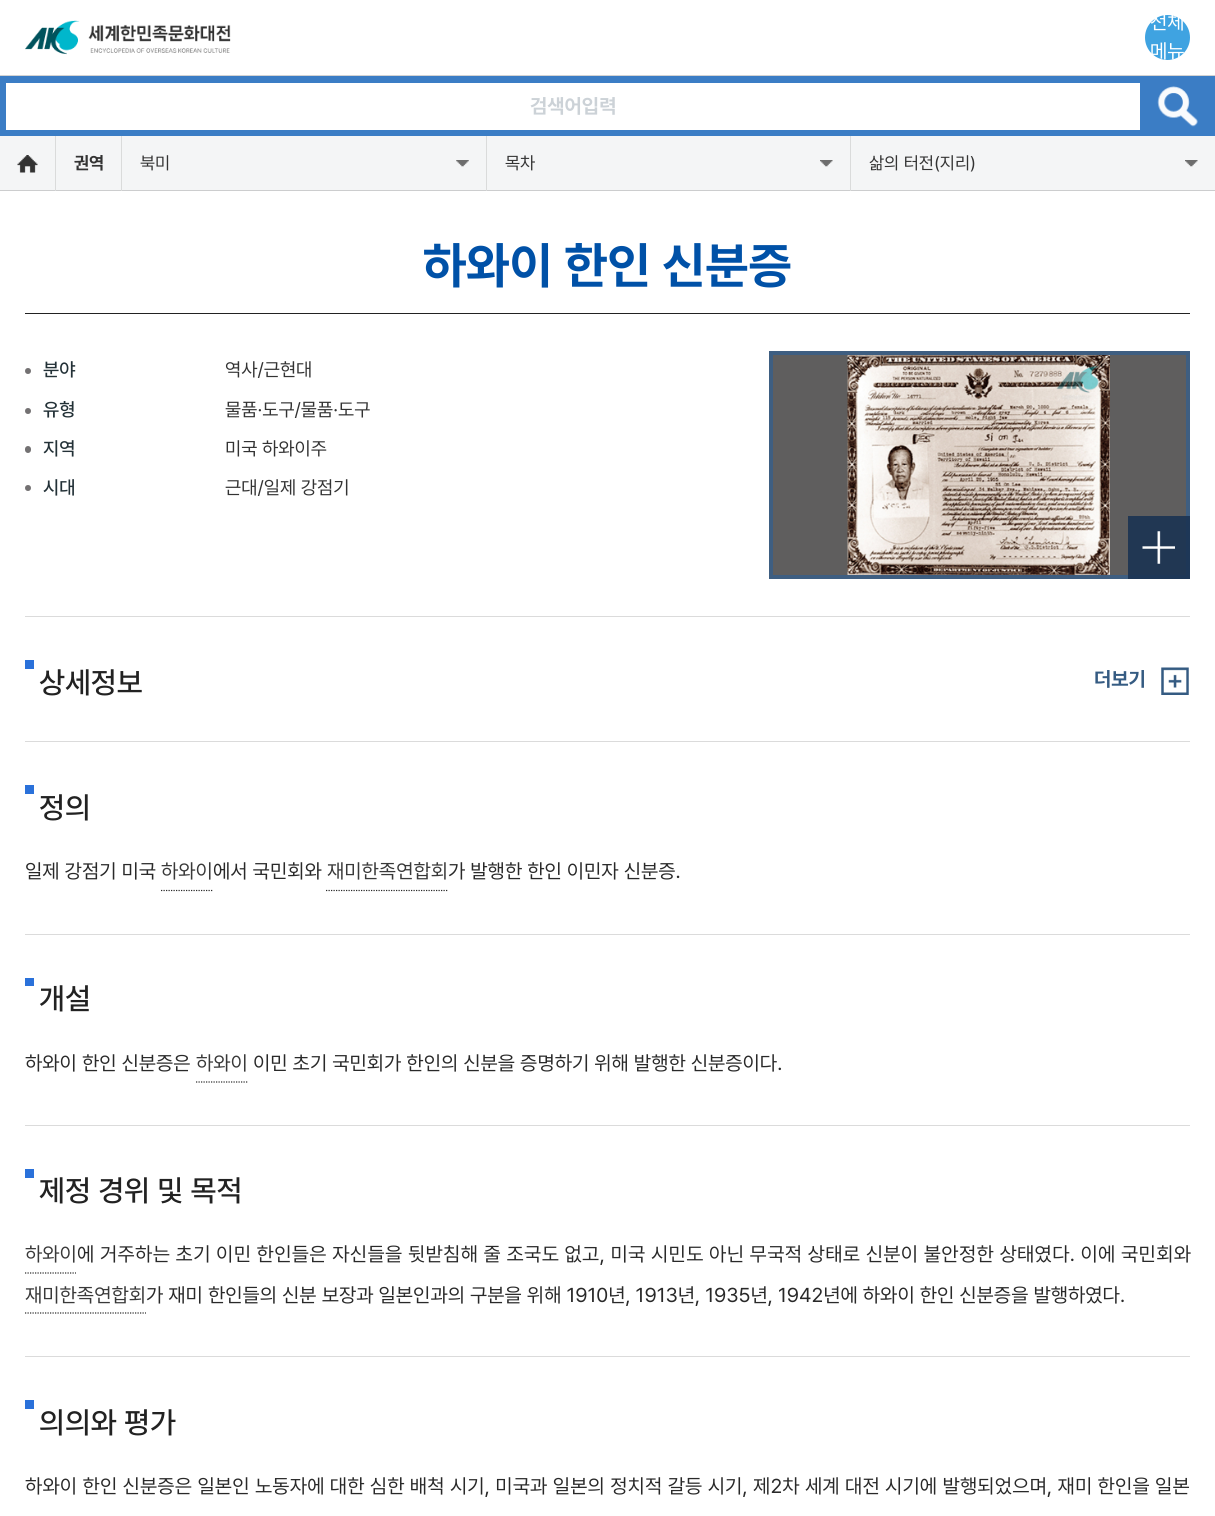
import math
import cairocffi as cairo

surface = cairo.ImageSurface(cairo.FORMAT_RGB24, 1215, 1516)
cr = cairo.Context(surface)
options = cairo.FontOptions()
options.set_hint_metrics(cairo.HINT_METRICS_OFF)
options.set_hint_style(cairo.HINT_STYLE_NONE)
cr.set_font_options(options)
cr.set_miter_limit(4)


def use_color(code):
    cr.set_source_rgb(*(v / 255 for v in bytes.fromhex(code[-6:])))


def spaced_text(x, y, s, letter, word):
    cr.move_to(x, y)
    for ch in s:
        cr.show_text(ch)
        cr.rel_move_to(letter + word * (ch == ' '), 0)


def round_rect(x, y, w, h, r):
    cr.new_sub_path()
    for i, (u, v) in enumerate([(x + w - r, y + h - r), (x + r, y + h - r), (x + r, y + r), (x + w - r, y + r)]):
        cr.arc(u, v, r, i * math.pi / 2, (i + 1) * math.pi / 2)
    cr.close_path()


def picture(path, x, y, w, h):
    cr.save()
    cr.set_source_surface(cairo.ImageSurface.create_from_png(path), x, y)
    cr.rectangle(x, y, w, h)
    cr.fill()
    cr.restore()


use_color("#d3d3d3")
cr.paint()
use_color("#ffffff")
cr.rectangle(0, 0, 1215, 75)
cr.fill()
picture("img1.png", 25, 20, 206, 35)
use_color("#3fa3e1")
cr.arc(1167.5, 37.5, 22.5, 0, 2 * math.pi)
cr.fill()
cr.select_font_face("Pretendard")
cr.set_font_size(20)
use_color("#ffffff")
cr.move_to(1150, 29)
cr.show_text("전체")
cr.move_to(1150, 58)
cr.show_text("메뉴")
use_color("#3b7dc5")
cr.rectangle(0, 76, 1215, 60)
cr.fill()
use_color("#ffffff")
cr.rectangle(6, 83, 1134, 47)
cr.fill()
cr.select_font_face("Pretendard", cairo.FONT_SLANT_NORMAL, cairo.FONT_WEIGHT_BOLD)
use_color("#ccd2d7")
cr.move_to(530, 113)
cr.show_text("검색어입력")
picture("img2.png", 1157, 86, 41, 41)
use_color("#f4f5f6")
cr.rectangle(0, 136, 1215, 54)
cr.fill()
use_color("#cccdce")
cr.rectangle(0, 190, 1215, 1)
cr.fill()
use_color("#dadbdb")
cr.rectangle(55, 136, 1, 55)
cr.fill()
picture("img3.png", 17, 155, 21, 18)
cr.rectangle(121, 136, 1, 55)
cr.fill()
cr.set_font_size(17.5)
use_color("#333333")
cr.move_to(74, 169)
cr.show_text("권역")
use_color("#dadbdb")
cr.rectangle(486, 136, 1, 55)
cr.fill()
cr.select_font_face("Pretendard")
use_color("#333333")
cr.move_to(140, 169)
cr.show_text("북미")
picture("img4.png", 456, 160, 13, 7)
use_color("#dadbdb")
cr.rectangle(850, 136, 1, 55)
cr.fill()
use_color("#333333")
cr.move_to(505, 169)
cr.show_text("목차")
picture("img5.png", 820, 160, 13, 7)
cr.move_to(869, 169)
cr.show_text("삶의 터전(지리)")
picture("img6.png", 1185, 160, 13, 7)
use_color("#ffffff")
cr.rectangle(0, 191, 1215, 1325)
cr.fill()
use_color("#222222")
cr.rectangle(25, 313, 1165, 1)
cr.fill()
cr.select_font_face("Pretendard", cairo.FONT_SLANT_NORMAL, cairo.FONT_WEIGHT_BOLD)
cr.set_font_size(50)
use_color("#0051a7")
cr.move_to(423, 283)
cr.show_text("하와이 한인 신분증")
use_color("#737172")
cr.new_path()
cr.arc(28, 371, 3, 0, 2 * math.pi)
cr.fill()
cr.select_font_face("Pretendard Medium")
cr.set_font_size(18.75)
use_color("#233137")
cr.move_to(43, 376)
cr.show_text("분야")
cr.select_font_face("Pretendard")
use_color("#333333")
cr.move_to(225, 376)
cr.show_text("역사/근현대")
use_color("#737172")
cr.new_path()
cr.arc(28, 411, 3, 0, 2 * math.pi)
cr.fill()
cr.select_font_face("Pretendard Medium")
use_color("#233137")
cr.move_to(43, 416)
cr.show_text("유형")
cr.select_font_face("Pretendard")
use_color("#333333")
cr.move_to(225, 416)
cr.show_text("물품·도구/물품·도구")
use_color("#737172")
round_rect(25, 446, 6, 7, 3)
cr.fill()
cr.select_font_face("Pretendard Medium")
use_color("#233137")
cr.move_to(43, 455)
cr.show_text("지역")
cr.select_font_face("Pretendard")
use_color("#333333")
cr.move_to(225, 455)
cr.show_text("미국 하와이주")
use_color("#737172")
cr.new_path()
cr.arc(28, 488, 3, 0, 2 * math.pi)
cr.fill()
cr.select_font_face("Pretendard Medium")
use_color("#233137")
cr.move_to(43, 494)
cr.show_text("시대")
cr.select_font_face("Pretendard")
use_color("#333333")
cr.move_to(225, 494)
cr.show_text("근대/일제 강점기")
use_color("#5f5e5e")
cr.rectangle(771, 353, 417, 224)
cr.fill_preserve()
use_color("#3e5e81")
cr.set_line_width(4)
cr.stroke()
picture("img7.png", 847, 355, 263, 220)
cr.set_source_rgba(0.106, 0.2, 0.325, 0.9)
cr.rectangle(1128, 516, 62, 63)
cr.fill()
picture("img8.png", 1142, 531, 33, 33)
use_color("#dbdbdb")
cr.rectangle(25, 616, 1165, 1)
cr.fill()
use_color("#2a71da")
cr.rectangle(25, 660, 9, 9)
cr.fill()
cr.select_font_face("Pretendard Medium")
cr.set_font_size(30)
use_color("#222222")
cr.move_to(39, 693)
cr.show_text("상세정보")
picture("img9.png", 1161, 667, 28, 28)
cr.select_font_face("Pretendard", cairo.FONT_SLANT_NORMAL, cairo.FONT_WEIGHT_BOLD)
cr.set_font_size(20)
use_color("#355b82")
cr.move_to(1094, 686)
cr.show_text("더보기")
use_color("#dbdbdb")
cr.rectangle(25, 741, 1165, 1)
cr.fill()
use_color("#2a71da")
cr.rectangle(25, 785, 9, 9)
cr.fill()
cr.select_font_face("Pretendard Medium")
cr.set_font_size(30)
use_color("#222222")
cr.move_to(39, 818)
cr.show_text("정의")
cr.select_font_face("Pretendard")
cr.set_font_size(20)
use_color("#292929")
cr.move_to(25, 878)
cr.show_text("일제 강점기 미국")
use_color("#393939")
cr.move_to(161, 878)
cr.show_text("하와이")
cr.new_path()
cr.move_to(161, 890.5)
cr.line_to(212.5, 890.5)
use_color("#292929")
cr.set_line_width(1.2)
cr.set_dash([1.25, 1.25])
cr.stroke()
cr.move_to(213, 878)
cr.show_text("에서 국민회와")
use_color("#393939")
cr.move_to(327, 878)
cr.show_text("재미한족연합회")
cr.new_path()
cr.move_to(326, 890.5)
cr.line_to(447.5, 890.5)
use_color("#292929")
cr.stroke()
cr.move_to(448, 878)
cr.show_text("가 발행한 한인 이민자 신분증.")
use_color("#dbdbdb")
cr.rectangle(25, 934, 1165, 1)
cr.fill()
use_color("#2a71da")
cr.rectangle(25, 978, 9, 8)
cr.fill()
cr.select_font_face("Pretendard Medium")
cr.set_font_size(30)
use_color("#222222")
cr.move_to(39, 1009)
cr.show_text("개설")
cr.select_font_face("Pretendard")
cr.set_font_size(20)
use_color("#292929")
cr.move_to(25, 1070)
cr.show_text("하와이 한인 신분증은")
use_color("#393939")
cr.move_to(196, 1070)
cr.show_text("하와이")
cr.new_path()
cr.move_to(196, 1082)
cr.line_to(247.5, 1082)
use_color("#292929")
cr.stroke()
cr.move_to(253, 1070)
cr.show_text("이민 초기 국민회가 한인의 신분을 증명하기 위해 발행한 신분증이다.")
use_color("#dbdbdb")
cr.rectangle(25, 1125, 1165, 1)
cr.fill()
use_color("#2a71da")
cr.rectangle(25, 1169, 9, 9)
cr.fill()
cr.select_font_face("Pretendard Medium")
cr.set_font_size(30)
use_color("#222222")
cr.move_to(39, 1201)
cr.show_text("제정 경위 및 목적")
cr.select_font_face("Pretendard")
cr.set_font_size(20)
use_color("#393939")
cr.move_to(25, 1261)
cr.show_text("하와이")
cr.new_path()
cr.move_to(25, 1273)
cr.line_to(76, 1273)
use_color("#292929")
cr.stroke()
spaced_text(77, 1261, "에 거주하는 초기 이민 한인들은 자신들을 뒷받침해 줄 조국도 없고, 미국 시민도 아닌 무국적 상태로 신분이 불안정한 상태였다. 이에 국민회와", 0.3, 0)
use_color("#393939")
cr.move_to(25, 1302)
cr.show_text("재미한족연합회")
cr.new_path()
cr.move_to(25, 1313)
cr.line_to(146, 1313)
use_color("#292929")
cr.stroke()
cr.move_to(146, 1302)
cr.show_text("가 재미 한인들의 신분 보장과 일본인과의 구분을 위해 1910년, 1913년, 1935년, 1942년에 하와이 한인 신분증을 발행하였다.")
use_color("#dbdbdb")
cr.rectangle(25, 1356, 1165, 1)
cr.fill()
use_color("#2a71da")
cr.rectangle(25, 1400, 9, 9)
cr.fill()
cr.select_font_face("Pretendard Medium")
cr.set_font_size(30)
use_color("#222222")
cr.move_to(39, 1433)
cr.show_text("의의와 평가")
cr.select_font_face("Pretendard")
cr.set_font_size(20)
use_color("#292929")
spaced_text(25, 1493, "하와이 한인 신분증은 일본인 노동자에 대한 심한 배척 시기, 미국과 일본의 정치적 갈등 시기, 제2차 세계 대전 시기에 발행되었으며, 재미 한인을 일본", 0.15, 0)
surface.write_to_png("result.png")
